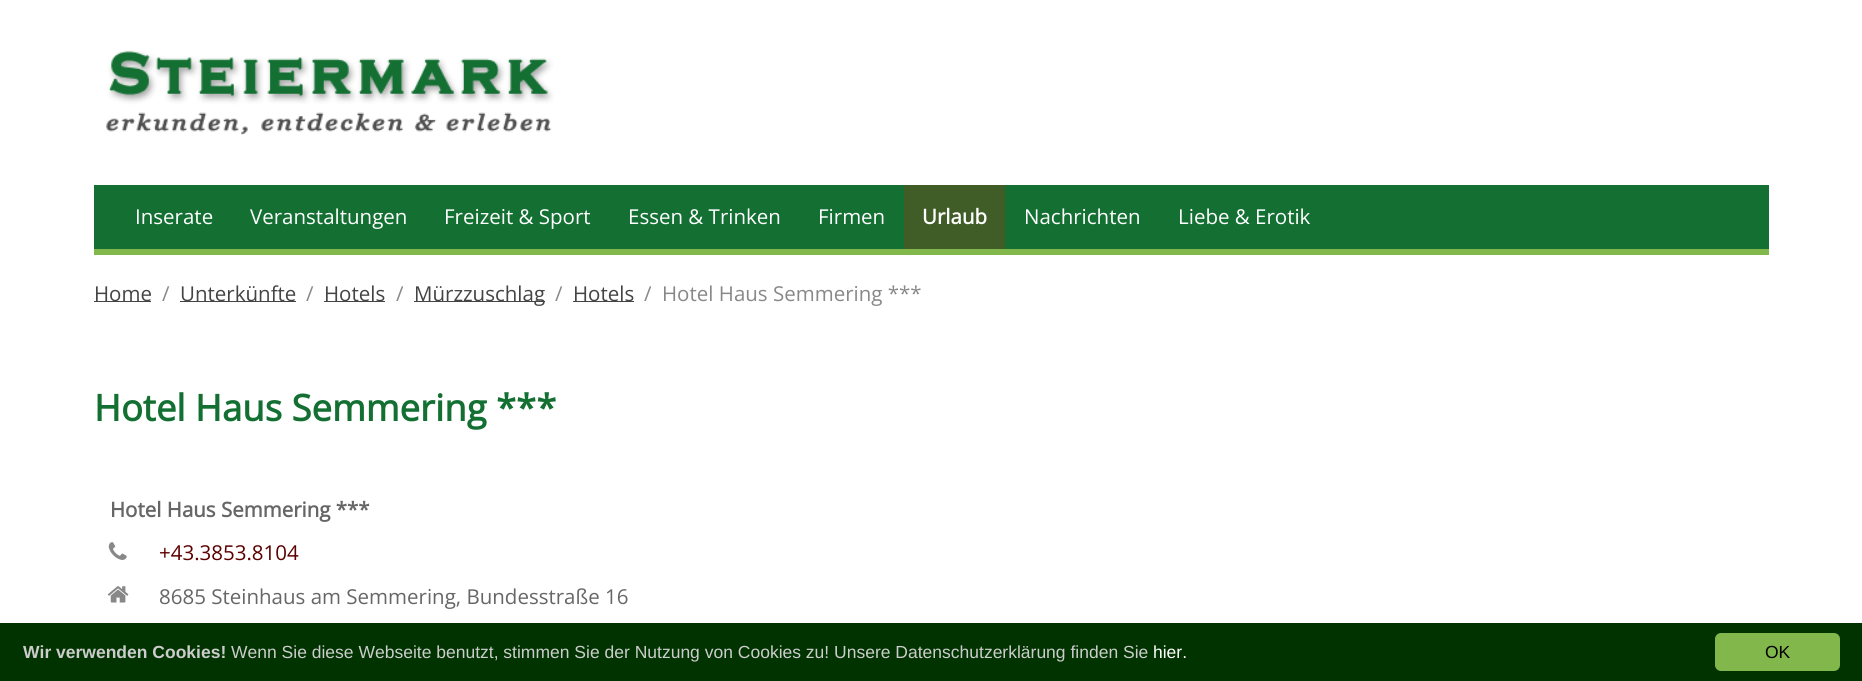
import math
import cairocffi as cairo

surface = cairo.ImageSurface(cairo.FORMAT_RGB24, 1862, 681)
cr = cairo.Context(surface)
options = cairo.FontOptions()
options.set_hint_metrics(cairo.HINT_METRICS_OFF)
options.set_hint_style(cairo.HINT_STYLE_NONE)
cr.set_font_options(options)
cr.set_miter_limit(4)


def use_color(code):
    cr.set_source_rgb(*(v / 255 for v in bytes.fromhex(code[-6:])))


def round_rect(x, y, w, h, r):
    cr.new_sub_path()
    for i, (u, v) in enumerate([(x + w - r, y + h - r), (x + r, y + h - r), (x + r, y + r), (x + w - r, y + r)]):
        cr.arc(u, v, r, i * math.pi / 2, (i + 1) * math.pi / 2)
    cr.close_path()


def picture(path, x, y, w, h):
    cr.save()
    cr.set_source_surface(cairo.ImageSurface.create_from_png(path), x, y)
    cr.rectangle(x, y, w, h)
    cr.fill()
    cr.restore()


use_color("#ffffff")
cr.paint()
picture("img1.png", 106, 50, 448, 85)
use_color("#137032")
cr.rectangle(94, 185, 1675, 64)
cr.fill()
use_color("#82b74b")
cr.rectangle(94, 249, 1675, 6)
cr.fill()
cr.select_font_face("Open Sans")
cr.set_font_size(20.5)
use_color("#ffffff")
cr.move_to(135, 224)
cr.show_text("Inserate")
cr.move_to(250, 224)
cr.show_text("Veranstaltungen")
cr.move_to(444, 224)
cr.show_text("Freizeit & Sport")
cr.move_to(628, 224)
cr.show_text("Essen & Trinken")
cr.move_to(818, 224)
cr.show_text("Firmen")
use_color("#405d27")
cr.rectangle(904, 185, 101, 64)
cr.fill()
cr.select_font_face("Open Sans", cairo.FONT_SLANT_NORMAL, cairo.FONT_WEIGHT_BOLD)
use_color("#ffffff")
cr.move_to(922, 224)
cr.show_text("Urlaub")
cr.select_font_face("Open Sans")
cr.move_to(1024, 224)
cr.show_text("Nachrichten")
cr.move_to(1178, 224)
cr.show_text("Liebe & Erotik")
use_color("#444444")
cr.rectangle(94, 301, 57, 1)
cr.fill()
cr.move_to(94, 301)
cr.show_text("Home")
use_color("#888888")
cr.move_to(162, 301)
cr.show_text("/")
use_color("#444444")
cr.rectangle(180, 301, 116, 1)
cr.fill()
cr.move_to(180, 301)
cr.show_text("Unterkünfte")
use_color("#888888")
cr.move_to(306, 301)
cr.show_text("/")
use_color("#444444")
cr.rectangle(324, 301, 61, 1)
cr.fill()
cr.move_to(324, 301)
cr.show_text("Hotels")
use_color("#888888")
cr.move_to(396, 301)
cr.show_text("/")
use_color("#444444")
cr.rectangle(414, 301, 131, 1)
cr.fill()
cr.move_to(414, 301)
cr.show_text("Mürzzuschlag")
use_color("#888888")
cr.move_to(555, 301)
cr.show_text("/")
use_color("#444444")
cr.rectangle(573, 301, 61, 1)
cr.fill()
cr.move_to(573, 301)
cr.show_text("Hotels")
use_color("#888888")
cr.move_to(644, 301)
cr.show_text("/")
cr.move_to(662, 301)
cr.show_text("Hotel Haus Semmering ***")
cr.select_font_face("Open Sans", cairo.FONT_SLANT_NORMAL, cairo.FONT_WEIGHT_BOLD)
cr.set_font_size(36.5)
use_color("#137032")
cr.move_to(94, 421)
cr.show_text("Hotel Haus Semmering ***")
cr.set_font_size(20.5)
use_color("#666666")
cr.move_to(110, 517)
cr.show_text("Hotel Haus Semmering ***")
picture("img2.png", 108, 542, 19, 18)
cr.select_font_face("Open Sans")
use_color("#5c0000")
cr.move_to(159, 560)
cr.show_text("+43.3853.8104")
picture("img3.png", 107, 586, 22, 17)
use_color("#666666")
cr.move_to(159, 604)
cr.show_text("8685 Steinhaus am Semmering, Bundesstraße 16")
use_color("#003300")
cr.rectangle(0, 623, 1862, 58)
cr.fill()
cr.select_font_face("Liberation Sans", cairo.FONT_SLANT_NORMAL, cairo.FONT_WEIGHT_BOLD)
cr.set_font_size(17.5)
use_color("#cccccc")
cr.move_to(23, 658)
cr.show_text("Wir verwenden Cookies!")
cr.select_font_face("Liberation Sans")
cr.move_to(231, 658)
cr.show_text("Wenn Sie diese Webseite benutzt, stimmen Sie der Nutzung von Cookies zu! Unsere Datenschutzerklärung finden Sie")
use_color("#ffffff")
cr.move_to(1153, 658)
cr.show_text("hier.")
use_color("#82b74b")
round_rect(1715, 633, 125, 38, 6)
cr.fill()
use_color("#000000")
cr.move_to(1765, 658)
cr.show_text("OK")
surface.write_to_png("result.png")
